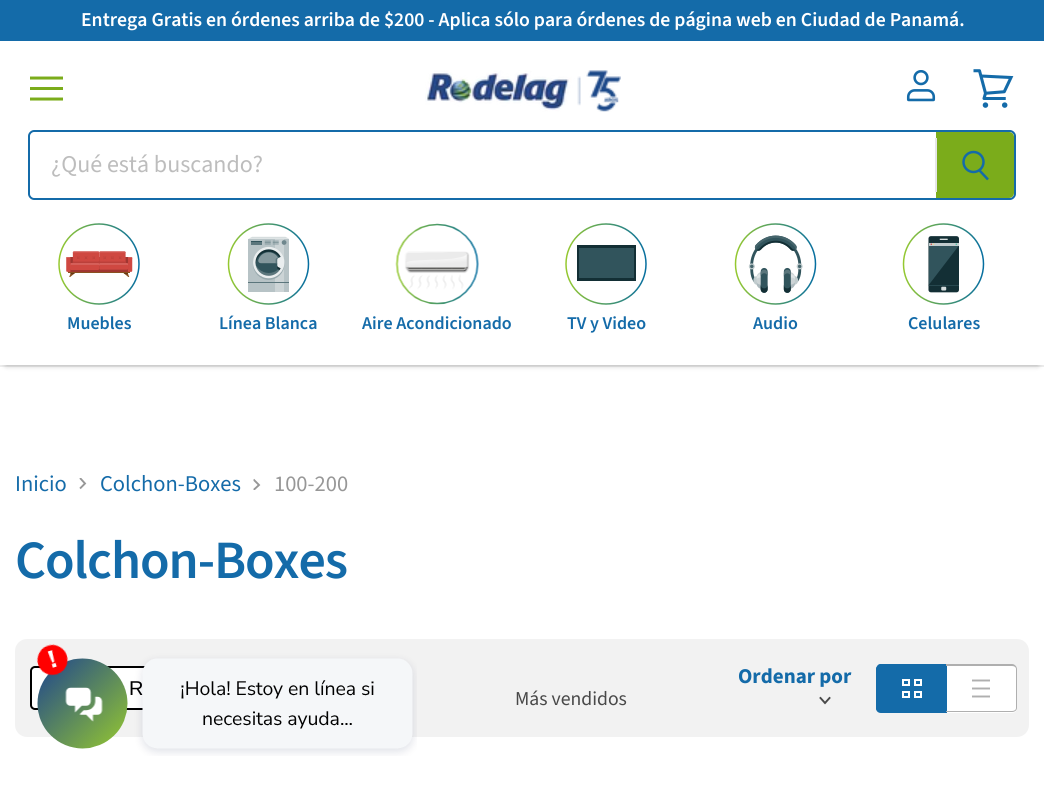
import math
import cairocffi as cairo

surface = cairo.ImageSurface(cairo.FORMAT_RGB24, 1044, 785)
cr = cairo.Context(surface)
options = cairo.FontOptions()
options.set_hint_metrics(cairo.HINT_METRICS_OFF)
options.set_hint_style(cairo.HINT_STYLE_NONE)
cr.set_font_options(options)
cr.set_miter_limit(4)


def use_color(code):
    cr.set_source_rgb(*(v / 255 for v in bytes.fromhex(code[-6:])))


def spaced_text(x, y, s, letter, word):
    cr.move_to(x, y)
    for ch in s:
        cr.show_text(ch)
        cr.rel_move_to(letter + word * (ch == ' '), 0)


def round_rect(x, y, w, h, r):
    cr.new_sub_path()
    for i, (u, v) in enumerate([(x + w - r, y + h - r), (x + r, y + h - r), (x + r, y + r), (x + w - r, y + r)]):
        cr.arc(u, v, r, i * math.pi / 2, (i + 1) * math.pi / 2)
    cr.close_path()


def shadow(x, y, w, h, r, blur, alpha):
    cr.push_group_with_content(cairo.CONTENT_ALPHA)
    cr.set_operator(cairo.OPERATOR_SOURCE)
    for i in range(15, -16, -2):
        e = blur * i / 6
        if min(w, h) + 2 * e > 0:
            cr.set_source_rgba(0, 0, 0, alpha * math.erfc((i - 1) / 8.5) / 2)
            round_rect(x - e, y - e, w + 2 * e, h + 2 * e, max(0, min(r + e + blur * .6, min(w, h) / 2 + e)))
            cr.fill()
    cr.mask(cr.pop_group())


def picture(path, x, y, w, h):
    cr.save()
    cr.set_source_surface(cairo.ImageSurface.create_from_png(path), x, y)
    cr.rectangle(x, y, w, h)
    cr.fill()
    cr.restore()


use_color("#ffffff")
cr.paint()
use_color("#146ba9")
cr.rectangle(0, 0, 1044, 41)
cr.fill()
cr.select_font_face("Source Sans Pro SemiBold")
cr.set_font_size(19.7)
use_color("#ffffff")
cr.move_to(81, 26)
cr.show_text("Entrega Gratis en órdenes arriba de $200 - Aplica sólo para órdenes de página web en Ciudad de Panamá.")
use_color("#ededed")
cr.rectangle(0, 365, 1044, 2)
cr.fill()
cr.save()
cr.set_fill_rule(cairo.FILL_RULE_EVEN_ODD)
cr.new_path()
cr.move_to(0, 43)
cr.line_to(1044, 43)
cr.line_to(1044, 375)
cr.line_to(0, 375)
cr.close_path()
cr.move_to(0, 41)
cr.line_to(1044, 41)
cr.line_to(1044, 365)
cr.line_to(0, 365)
cr.close_path()
cr.clip()
use_color("#000000")
shadow(6, 53, 1032, 312, 0, 3, 0.3)
cr.restore()
cr.new_path()
cr.move_to(61.5, 78)
cr.line_to(31.5, 78)
use_color("#7bac1b")
cr.set_line_width(3)
cr.set_line_cap(cairo.LINE_CAP_SQUARE)
cr.set_line_join(cairo.LINE_JOIN_ROUND)
cr.stroke()
cr.rectangle(30, 87, 33, 3)
cr.fill()
cr.new_path()
cr.move_to(61.5, 99)
cr.line_to(31.5, 99)
cr.stroke()
picture("img1.png", 906, 70, 30, 32)
picture("img2.png", 973, 69, 41, 39)
picture("img3.png", 425, 70, 196, 42)
use_color("#146ba9")
cr.set_fill_rule(cairo.FILL_RULE_EVEN_ODD)
cr.new_path()
cr.move_to(34, 130)
cr.line_to(936, 130)
cr.line_to(936, 200)
cr.line_to(34, 200)
cr.curve_to(31, 200, 28, 197, 28, 194)
cr.line_to(28, 136)
cr.curve_to(28, 133, 31, 130, 34, 130)
cr.close_path()
cr.move_to(34, 132)
cr.line_to(936, 132)
cr.line_to(936, 198)
cr.line_to(34, 198)
cr.curve_to(32, 198, 30, 196, 30, 194)
cr.line_to(30, 136)
cr.curve_to(30, 134, 32, 132, 34, 132)
cr.close_path()
cr.fill()
cr.select_font_face("Source Sans Pro")
cr.set_font_size(24)
use_color("#bdbdbd")
cr.move_to(51, 172)
cr.show_text("¿Qué está buscando?")
use_color("#7bac1b")
cr.new_path()
cr.move_to(936, 132)
cr.line_to(1009, 132)
cr.curve_to(1012, 132, 1014, 134, 1014, 137)
cr.line_to(1014, 193)
cr.curve_to(1014, 196, 1012, 198, 1009, 198)
cr.line_to(936, 198)
cr.close_path()
cr.fill()
use_color("#146ba9")
cr.new_path()
cr.move_to(936, 130)
cr.line_to(1010, 130)
cr.curve_to(1013, 130, 1016, 133, 1016, 136)
cr.line_to(1016, 194)
cr.curve_to(1016, 197, 1013, 200, 1010, 200)
cr.line_to(936, 200)
cr.close_path()
cr.move_to(936, 132)
cr.line_to(1010, 132)
cr.curve_to(1012, 132, 1014, 134, 1014, 136)
cr.line_to(1014, 194)
cr.curve_to(1014, 196, 1012, 198, 1010, 198)
cr.line_to(936, 198)
cr.close_path()
cr.fill()
use_color("#e5e5e5")
cr.rectangle(935, 138, 2, 54)
cr.fill()
cr.new_path()
cr.move_to(988, 179.5)
cr.line_to(979.5, 170.5)
use_color("#146ba9")
cr.set_line_width(2.5)
cr.set_line_cap(cairo.LINE_CAP_BUTT)
cr.set_line_join(cairo.LINE_JOIN_MITER)
cr.stroke()
cr.arc(973.5, 162, 10, 0, 2 * math.pi)
cr.stroke()
picture("img4.png", 58, 223, 82, 82)
cr.select_font_face("Source Sans Pro SemiBold")
cr.set_font_size(18)
cr.move_to(67, 329)
cr.show_text("Muebles")
picture("img5.png", 227, 223, 83, 82)
cr.move_to(219, 329)
cr.show_text("Línea Blanca")
picture("img6.png", 395, 223, 84, 82)
cr.move_to(362, 329)
cr.show_text("Aire Acondicionado")
use_color("#31545c")
cr.rectangle(579, 248, 55, 30)
cr.fill()
use_color("#132f35")
cr.set_fill_rule(cairo.FILL_RULE_WINDING)
cr.new_path()
cr.move_to(634, 248)
cr.line_to(634, 278)
cr.line_to(579, 278)
cr.line_to(579, 248)
cr.line_to(634, 248)
cr.move_to(636, 245)
cr.line_to(577, 245)
cr.line_to(577, 281)
cr.line_to(636, 281)
cr.close_path()
cr.fill()
cr.arc(606, 264, 40, 0, 2 * math.pi)
gradient = cairo.LinearGradient(566, 264, 647, 264)
gradient.add_color_stop_rgba(0, 0.588, 0.788, 0.184, 1)
gradient.add_color_stop_rgba(1, 0.016, 0.427, 0.631, 1)
cr.set_source(gradient)
cr.set_line_width(1.5)
cr.stroke()
use_color("#146ba9")
cr.move_to(567, 329)
cr.show_text("TV y Video")
picture("img7.png", 734, 223, 83, 82)
cr.move_to(753, 329)
cr.show_text("Audio")
picture("img8.png", 902, 223, 83, 82)
cr.move_to(908, 329)
cr.show_text("Celulares")
cr.select_font_face("Source Sans Pro")
cr.set_font_size(22.5)
cr.move_to(15, 491)
cr.show_text("Inicio")
cr.save()
cr.new_path()
cr.move_to(79.5, 490)
cr.line_to(79.5, 478)
cr.line_to(87, 478)
cr.line_to(87, 490)
cr.close_path()
cr.clip()
cr.new_path()
cr.move_to(80, 488.5)
cr.line_to(85, 483.5)
cr.line_to(80, 478)
use_color("#979797")
cr.set_line_width(1.9)
cr.stroke()
cr.restore()
cr.move_to(100, 491)
cr.show_text("Colchon-Boxes")
cr.save()
cr.new_path()
cr.move_to(253.5, 490)
cr.line_to(253.5, 478)
cr.line_to(261, 478)
cr.line_to(261, 490)
cr.close_path()
cr.clip()
cr.new_path()
cr.move_to(253.5, 490)
cr.line_to(259, 485)
cr.line_to(253.5, 479.5)
use_color("#979797")
cr.set_line_width(1.9)
cr.stroke()
cr.restore()
use_color("#979797")
cr.move_to(274, 491)
cr.show_text("100-200")
cr.select_font_face("Source Sans Pro SemiBold")
cr.set_font_size(54)
use_color("#146ba9")
spaced_text(15, 578, "Colchon-Boxes", -1.1, 0)
use_color("#f2f2f2")
round_rect(15, 639, 1014, 98, 12)
cr.fill()
use_color("#ffffff")
round_rect(31, 667, 142, 42, 4)
cr.fill_preserve()
use_color("#000000")
cr.set_line_width(2)
cr.stroke()
cr.select_font_face("Liberation Sans")
cr.set_font_size(20)
cr.move_to(129, 695)
cr.show_text("R")
cr.select_font_face("Source Sans Pro", cairo.FONT_SLANT_NORMAL, cairo.FONT_WEIGHT_BOLD)
cr.set_font_size(21)
use_color("#146ba9")
cr.move_to(738, 683)
cr.show_text("Ordenar por")
cr.select_font_face("Source Sans Pro")
cr.set_font_size(19.7)
use_color("#494949")
cr.move_to(515, 705)
cr.show_text("Más vendidos")
cr.new_path()
cr.move_to(825, 703)
cr.line_to(829.5, 698)
cr.move_to(825, 703)
cr.line_to(820.5, 698)
cr.set_line_width(1.9)
cr.set_line_cap(cairo.LINE_CAP_SQUARE)
cr.stroke()
use_color("#146ba9")
cr.new_path()
cr.move_to(881, 665)
cr.line_to(947, 665)
cr.line_to(947, 713)
cr.line_to(881, 713)
cr.curve_to(878, 713, 876, 711, 876, 708)
cr.line_to(876, 670)
cr.curve_to(876, 667, 878, 665, 881, 665)
cr.close_path()
cr.fill()
cr.set_fill_rule(cairo.FILL_RULE_EVEN_ODD)
cr.new_path()
cr.move_to(880, 664)
cr.line_to(946, 664)
cr.line_to(946, 712)
cr.line_to(880, 712)
cr.curve_to(878, 712, 876, 710, 876, 708)
cr.line_to(876, 669)
cr.curve_to(876, 667, 878, 664, 880, 664)
cr.close_path()
cr.move_to(880, 666)
cr.line_to(946, 666)
cr.line_to(946, 711)
cr.line_to(880, 711)
cr.curve_to(879, 711, 878, 710, 878, 708)
cr.line_to(878, 669)
cr.curve_to(878, 667, 879, 666, 880, 666)
cr.close_path()
cr.fill()
cr.rectangle(903, 680, 6, 5)
use_color("#ffffff")
cr.set_line_width(2)
cr.set_line_cap(cairo.LINE_CAP_BUTT)
cr.stroke()
cr.rectangle(915, 680, 6, 5)
cr.stroke()
cr.rectangle(903, 692, 6, 5)
cr.stroke()
cr.rectangle(915, 692, 6, 5)
cr.stroke()
cr.new_path()
cr.move_to(947, 665)
cr.line_to(1012, 665)
cr.curve_to(1015, 665, 1017, 667, 1017, 670)
cr.line_to(1017, 708)
cr.curve_to(1017, 711, 1015, 713, 1012, 713)
cr.line_to(947, 713)
cr.close_path()
cr.fill()
use_color("#afafaf")
cr.new_path()
cr.move_to(946, 664)
cr.line_to(1012, 664)
cr.curve_to(1015, 664, 1017, 667, 1017, 669)
cr.line_to(1017, 708)
cr.curve_to(1017, 710, 1015, 712, 1012, 712)
cr.line_to(946, 712)
cr.close_path()
cr.move_to(946, 666)
cr.line_to(1012, 666)
cr.curve_to(1014, 666, 1016, 667, 1016, 669)
cr.line_to(1016, 708)
cr.curve_to(1016, 710, 1014, 711, 1012, 711)
cr.line_to(946, 711)
cr.close_path()
cr.fill()
cr.new_path()
cr.move_to(972, 680.5)
cr.line_to(990, 680.5)
cr.move_to(972, 696.5)
cr.line_to(990, 696.5)
cr.move_to(972, 688.5)
cr.line_to(990, 688.5)
cr.set_line_width(1.9)
cr.set_line_join(cairo.LINE_JOIN_ROUND)
cr.stroke()
picture("img9.png", 36, 644, 381, 112)
surface.write_to_png("result.png")
